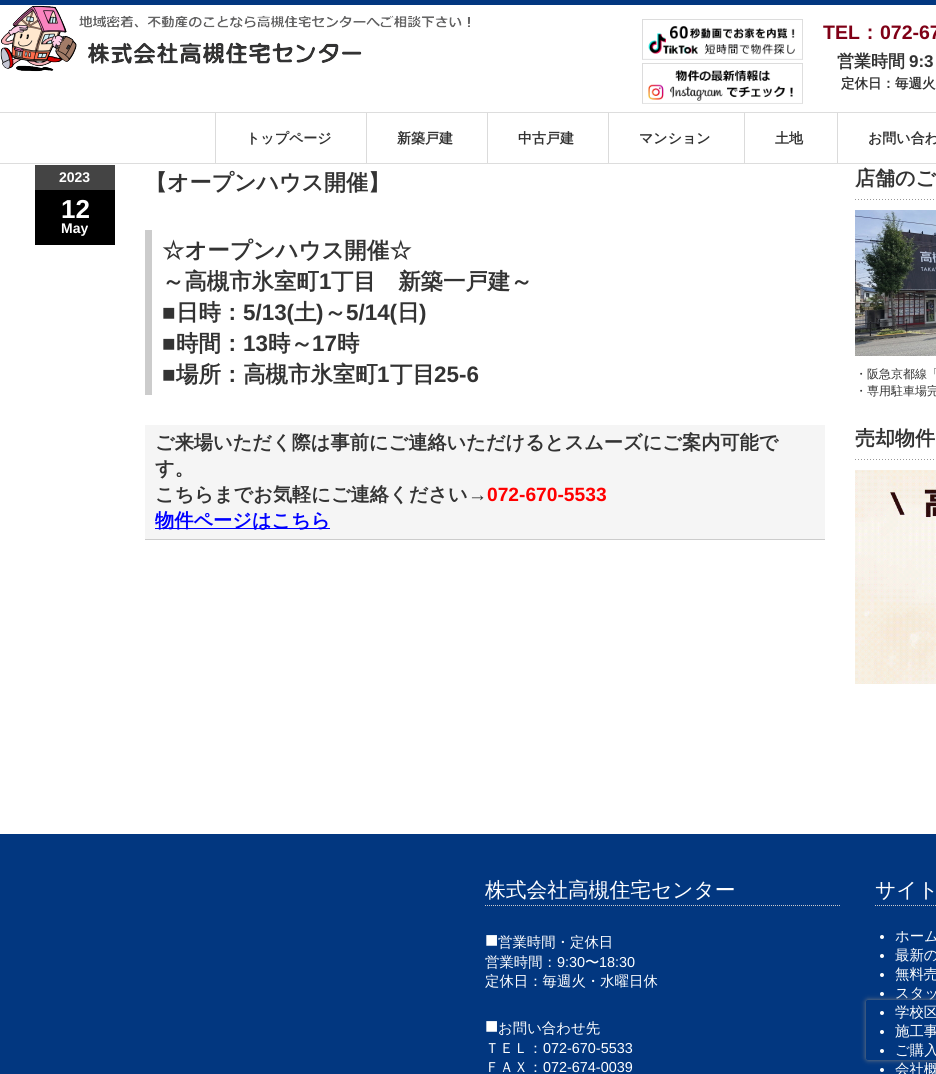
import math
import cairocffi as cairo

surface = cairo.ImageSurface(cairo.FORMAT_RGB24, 936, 1074)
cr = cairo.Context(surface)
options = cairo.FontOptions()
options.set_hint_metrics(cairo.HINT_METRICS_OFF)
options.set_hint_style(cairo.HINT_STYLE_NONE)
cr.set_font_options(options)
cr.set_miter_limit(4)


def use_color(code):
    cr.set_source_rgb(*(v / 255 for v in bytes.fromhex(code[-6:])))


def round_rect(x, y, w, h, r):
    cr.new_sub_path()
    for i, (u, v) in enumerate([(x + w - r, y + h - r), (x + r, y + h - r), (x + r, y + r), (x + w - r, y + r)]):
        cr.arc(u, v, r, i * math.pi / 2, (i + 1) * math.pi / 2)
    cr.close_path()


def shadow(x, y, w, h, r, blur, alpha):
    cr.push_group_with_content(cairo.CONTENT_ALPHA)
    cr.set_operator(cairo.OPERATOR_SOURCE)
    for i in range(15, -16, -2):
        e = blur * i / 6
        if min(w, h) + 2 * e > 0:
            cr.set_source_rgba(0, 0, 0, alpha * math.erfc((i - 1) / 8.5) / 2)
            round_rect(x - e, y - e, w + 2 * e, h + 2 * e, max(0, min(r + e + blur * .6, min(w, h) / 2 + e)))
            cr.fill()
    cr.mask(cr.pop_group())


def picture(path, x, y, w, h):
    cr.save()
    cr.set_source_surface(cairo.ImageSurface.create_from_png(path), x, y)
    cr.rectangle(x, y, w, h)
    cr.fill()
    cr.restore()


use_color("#ffffff")
cr.paint()
use_color("#023780")
cr.rectangle(0, 0, 936, 5)
cr.fill()
use_color("#dddddd")
cr.rectangle(0, 163, 936, 1)
cr.fill()
picture("img1.png", 0, 5, 470, 67)
picture("img2.png", 642, 19, 161, 41)
picture("img3.png", 642, 63, 161, 41)
cr.select_font_face("Liberation Sans", cairo.FONT_SLANT_NORMAL, cairo.FONT_WEIGHT_BOLD)
cr.set_font_size(19.5)
use_color("#7f0016")
cr.move_to(823, 39)
cr.show_text("TEL")
cr.select_font_face("WenQuanYi Zen Hei", cairo.FONT_SLANT_NORMAL, cairo.FONT_WEIGHT_BOLD)
cr.move_to(860, 39)
cr.show_text("：")
cr.select_font_face("Liberation Sans", cairo.FONT_SLANT_NORMAL, cairo.FONT_WEIGHT_BOLD)
cr.move_to(880, 39)
cr.show_text("072-67")
cr.select_font_face("WenQuanYi Zen Hei", cairo.FONT_SLANT_NORMAL, cairo.FONT_WEIGHT_BOLD)
cr.set_font_size(17)
use_color("#333333")
cr.move_to(837, 67)
cr.show_text("営業時間")
cr.select_font_face("Liberation Sans", cairo.FONT_SLANT_NORMAL, cairo.FONT_WEIGHT_BOLD)
cr.move_to(909, 67)
cr.show_text("9:3")
cr.select_font_face("WenQuanYi Zen Hei", cairo.FONT_SLANT_NORMAL, cairo.FONT_WEIGHT_BOLD)
cr.set_font_size(13.5)
cr.move_to(841, 88)
cr.show_text("定休日：毎週火")
use_color("#dddddd")
cr.rectangle(0, 112, 936, 1)
cr.fill()
use_color("#dbdbdb")
cr.rectangle(215, 113, 1, 50)
cr.fill()
cr.set_font_size(14)
use_color("#333333")
cr.move_to(246, 143)
cr.show_text("トップページ")
use_color("#dbdbdb")
cr.rectangle(366, 113, 1, 50)
cr.fill()
use_color("#333333")
cr.move_to(397, 143)
cr.show_text("新築戸建")
use_color("#dbdbdb")
cr.rectangle(487, 113, 1, 50)
cr.fill()
use_color("#333333")
cr.move_to(518, 143)
cr.show_text("中古戸建")
use_color("#dbdbdb")
cr.rectangle(608, 113, 1, 50)
cr.fill()
use_color("#333333")
cr.move_to(639, 143)
cr.show_text("マンション")
use_color("#dbdbdb")
cr.rectangle(744, 113, 1, 50)
cr.fill()
use_color("#333333")
cr.move_to(775, 143)
cr.show_text("土地")
use_color("#dbdbdb")
cr.rectangle(837, 113, 1, 50)
cr.fill()
use_color("#333333")
cr.move_to(868, 143)
cr.show_text("お問い合わ")
use_color("#000000")
cr.rectangle(35, 190, 80, 55)
cr.fill()
use_color("#444444")
cr.rectangle(35, 165, 80, 25)
cr.fill()
cr.select_font_face("Liberation Sans", cairo.FONT_SLANT_NORMAL, cairo.FONT_WEIGHT_BOLD)
use_color("#ffffff")
cr.move_to(59, 182)
cr.show_text("2023")
cr.set_font_size(26)
cr.move_to(61, 218)
cr.show_text("12")
cr.set_font_size(14)
cr.move_to(61, 233)
cr.show_text("May")
cr.select_font_face("WenQuanYi Zen Hei", cairo.FONT_SLANT_NORMAL, cairo.FONT_WEIGHT_BOLD)
cr.set_font_size(22)
use_color("#333333")
cr.move_to(145, 190)
cr.show_text("【オープンハウス開催】")
use_color("#cccccc")
cr.rectangle(145, 230, 7, 165)
cr.fill()
cr.set_font_size(22.4)
use_color("#333333")
cr.move_to(162, 258)
cr.show_text("☆オープンハウス開催☆")
cr.move_to(162, 289)
cr.show_text("～高槻市氷室町")
cr.select_font_face("Liberation Sans", cairo.FONT_SLANT_NORMAL, cairo.FONT_WEIGHT_BOLD)
cr.move_to(319, 289)
cr.show_text("1")
cr.select_font_face("WenQuanYi Zen Hei", cairo.FONT_SLANT_NORMAL, cairo.FONT_WEIGHT_BOLD)
cr.move_to(331, 289)
cr.show_text("丁目　新築一戸建～")
cr.select_font_face("Liberation Sans", cairo.FONT_SLANT_NORMAL, cairo.FONT_WEIGHT_BOLD)
cr.move_to(162, 320)
cr.show_text("■")
cr.select_font_face("WenQuanYi Zen Hei", cairo.FONT_SLANT_NORMAL, cairo.FONT_WEIGHT_BOLD)
cr.move_to(176, 320)
cr.show_text("日時：")
cr.select_font_face("Liberation Sans", cairo.FONT_SLANT_NORMAL, cairo.FONT_WEIGHT_BOLD)
cr.move_to(243, 320)
cr.show_text("5/13(")
cr.select_font_face("WenQuanYi Zen Hei", cairo.FONT_SLANT_NORMAL, cairo.FONT_WEIGHT_BOLD)
cr.move_to(294, 320)
cr.show_text("土")
cr.select_font_face("Liberation Sans", cairo.FONT_SLANT_NORMAL, cairo.FONT_WEIGHT_BOLD)
cr.move_to(316, 320)
cr.show_text(")")
cr.select_font_face("WenQuanYi Zen Hei", cairo.FONT_SLANT_NORMAL, cairo.FONT_WEIGHT_BOLD)
cr.move_to(324, 320)
cr.show_text("～")
cr.select_font_face("Liberation Sans", cairo.FONT_SLANT_NORMAL, cairo.FONT_WEIGHT_BOLD)
cr.move_to(346, 320)
cr.show_text("5/14(")
cr.select_font_face("WenQuanYi Zen Hei", cairo.FONT_SLANT_NORMAL, cairo.FONT_WEIGHT_BOLD)
cr.move_to(397, 320)
cr.show_text("日")
cr.select_font_face("Liberation Sans", cairo.FONT_SLANT_NORMAL, cairo.FONT_WEIGHT_BOLD)
cr.move_to(419, 320)
cr.show_text(")")
cr.move_to(162, 351)
cr.show_text("■")
cr.select_font_face("WenQuanYi Zen Hei", cairo.FONT_SLANT_NORMAL, cairo.FONT_WEIGHT_BOLD)
cr.move_to(176, 351)
cr.show_text("時間：")
cr.select_font_face("Liberation Sans", cairo.FONT_SLANT_NORMAL, cairo.FONT_WEIGHT_BOLD)
cr.move_to(243, 351)
cr.show_text("13")
cr.select_font_face("WenQuanYi Zen Hei", cairo.FONT_SLANT_NORMAL, cairo.FONT_WEIGHT_BOLD)
cr.move_to(268, 351)
cr.show_text("時～")
cr.select_font_face("Liberation Sans", cairo.FONT_SLANT_NORMAL, cairo.FONT_WEIGHT_BOLD)
cr.move_to(312, 351)
cr.show_text("17")
cr.select_font_face("WenQuanYi Zen Hei", cairo.FONT_SLANT_NORMAL, cairo.FONT_WEIGHT_BOLD)
cr.move_to(337, 351)
cr.show_text("時")
cr.select_font_face("Liberation Sans", cairo.FONT_SLANT_NORMAL, cairo.FONT_WEIGHT_BOLD)
cr.move_to(162, 382)
cr.show_text("■")
cr.select_font_face("WenQuanYi Zen Hei", cairo.FONT_SLANT_NORMAL, cairo.FONT_WEIGHT_BOLD)
cr.move_to(176, 382)
cr.show_text("場所：高槻市氷室町")
cr.select_font_face("Liberation Sans", cairo.FONT_SLANT_NORMAL, cairo.FONT_WEIGHT_BOLD)
cr.move_to(377, 382)
cr.show_text("1")
cr.select_font_face("WenQuanYi Zen Hei", cairo.FONT_SLANT_NORMAL, cairo.FONT_WEIGHT_BOLD)
cr.move_to(390, 382)
cr.show_text("丁目")
cr.select_font_face("Liberation Sans", cairo.FONT_SLANT_NORMAL, cairo.FONT_WEIGHT_BOLD)
cr.move_to(434, 382)
cr.show_text("25-6")
use_color("#f5f5f5")
cr.rectangle(145, 425, 680, 114)
cr.fill()
use_color("#cccccc")
cr.rectangle(145, 539, 680, 1)
cr.fill()
cr.select_font_face("WenQuanYi Zen Hei", cairo.FONT_SLANT_NORMAL, cairo.FONT_WEIGHT_BOLD)
cr.set_font_size(19.2)
use_color("#333333")
cr.move_to(155, 449)
cr.show_text("ご来場いただく際は事前にご連絡いただけるとスムーズにご案内可能で")
cr.move_to(155, 475)
cr.show_text("す。")
cr.move_to(155, 501)
cr.show_text("こちらまでお気軽にご連絡ください")
cr.select_font_face("Liberation Sans", cairo.FONT_SLANT_NORMAL, cairo.FONT_WEIGHT_BOLD)
cr.move_to(468, 501)
cr.show_text("→")
use_color("#ff0000")
cr.move_to(487, 501)
cr.show_text("072-670-5533")
use_color("#0000ff")
cr.rectangle(155, 528, 175, 1)
cr.fill()
cr.select_font_face("WenQuanYi Zen Hei", cairo.FONT_SLANT_NORMAL, cairo.FONT_WEIGHT_BOLD)
cr.move_to(155, 527)
cr.show_text("物件ページはこちら")
picture("img4.png", 855, 199, 79, 1)
cr.set_font_size(20)
use_color("#333333")
cr.move_to(855, 185)
cr.show_text("店舗のご")
picture("img5.png", 855, 210, 81, 146)
cr.select_font_face("WenQuanYi Zen Hei Medium")
cr.set_font_size(12)
cr.move_to(855, 378)
cr.show_text("・阪急京都線「")
cr.move_to(855, 395)
cr.show_text("・専用駐車場完")
picture("img4.png", 855, 459, 79, 1)
cr.select_font_face("WenQuanYi Zen Hei", cairo.FONT_SLANT_NORMAL, cairo.FONT_WEIGHT_BOLD)
cr.set_font_size(20)
cr.move_to(855, 445)
cr.show_text("売却物件")
picture("img6.png", 855, 470, 81, 214)
use_color("#023780")
cr.rectangle(0, 834, 936, 240)
cr.fill()
cr.new_path()
cr.move_to(485, 905.5)
cr.line_to(840, 905.5)
use_color("#cccccc")
cr.set_line_width(1)
cr.set_dash([1, 1])
cr.stroke()
cr.select_font_face("WenQuanYi Zen Hei Medium")
cr.set_font_size(20.75)
use_color("#ffffff")
cr.move_to(485, 897)
cr.show_text("株式会社高槻住宅センター")
cr.select_font_face("Liberation Sans")
cr.set_font_size(22)
cr.move_to(485, 947)
cr.show_text("■")
cr.select_font_face("WenQuanYi Zen Hei Medium")
cr.set_font_size(14.4)
cr.move_to(498, 947)
cr.show_text("営業時間・定休日")
cr.move_to(485, 967)
cr.show_text("営業時間：")
cr.select_font_face("Liberation Sans")
cr.move_to(557, 967)
cr.show_text("9:30")
cr.select_font_face("WenQuanYi Zen Hei Medium")
cr.move_to(585, 967)
cr.show_text("〜")
cr.select_font_face("Liberation Sans")
cr.move_to(599, 967)
cr.show_text("18:30")
cr.select_font_face("WenQuanYi Zen Hei Medium")
cr.move_to(485, 986)
cr.show_text("定休日：毎週火・水曜日休")
cr.select_font_face("Liberation Sans")
cr.set_font_size(22)
cr.move_to(485, 1033)
cr.show_text("■")
cr.select_font_face("WenQuanYi Zen Hei Medium")
cr.set_font_size(14.4)
cr.move_to(498, 1033)
cr.show_text("お問い合わせ先")
cr.move_to(485, 1053)
cr.show_text("ＴＥＬ：")
cr.select_font_face("Liberation Sans")
cr.move_to(543, 1053)
cr.show_text("072-670-5533")
cr.select_font_face("WenQuanYi Zen Hei Medium")
cr.move_to(485, 1072)
cr.show_text("ＦＡＸ：")
cr.select_font_face("Liberation Sans")
cr.move_to(543, 1072)
cr.show_text("072-674-0039")
cr.new_path()
cr.move_to(875, 905.5)
cr.line_to(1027, 905.5)
use_color("#cccccc")
cr.stroke()
cr.select_font_face("WenQuanYi Zen Hei Medium")
cr.set_font_size(20.75)
use_color("#ffffff")
cr.move_to(875, 897)
cr.show_text("サイト")
cr.new_path()
cr.arc(882, 937, 2, 0, 2 * math.pi)
cr.fill()
cr.set_font_size(14.4)
cr.move_to(895, 941)
cr.show_text("ホーム")
cr.new_path()
cr.arc(882, 956, 2, 0, 2 * math.pi)
cr.fill()
cr.move_to(895, 960)
cr.show_text("最新の")
cr.new_path()
cr.arc(882, 975, 2, 0, 2 * math.pi)
cr.fill()
cr.move_to(895, 979)
cr.show_text("無料売")
cr.new_path()
cr.arc(882, 994, 2, 0, 2 * math.pi)
cr.fill()
cr.move_to(895, 998)
cr.show_text("スタッ")
cr.new_path()
cr.arc(882, 1013, 2, 0, 2 * math.pi)
cr.fill()
cr.move_to(895, 1017)
cr.show_text("学校区")
cr.new_path()
cr.arc(882, 1032, 2, 0, 2 * math.pi)
cr.fill()
cr.move_to(895, 1036)
cr.show_text("施工事")
cr.new_path()
cr.arc(882, 1051, 2, 0, 2 * math.pi)
cr.fill()
cr.move_to(895, 1055)
cr.show_text("ご購入")
cr.new_path()
cr.arc(882, 1070, 2, 0, 2 * math.pi)
cr.fill()
cr.move_to(895, 1074)
cr.show_text("会社概")
cr.save()
cr.set_fill_rule(cairo.FILL_RULE_EVEN_ODD)
cr.new_path()
cr.move_to(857, 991)
cr.line_to(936, 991)
cr.line_to(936, 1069)
cr.line_to(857, 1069)
cr.close_path()
cr.move_to(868, 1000)
cr.line_to(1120, 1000)
cr.curve_to(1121, 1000, 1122, 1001, 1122, 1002)
cr.line_to(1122, 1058)
cr.curve_to(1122, 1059, 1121, 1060, 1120, 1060)
cr.line_to(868, 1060)
cr.curve_to(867, 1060, 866, 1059, 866, 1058)
cr.line_to(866, 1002)
cr.curve_to(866, 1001, 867, 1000, 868, 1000)
cr.close_path()
cr.clip()
use_color("#808080")
shadow(866, 1000, 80, 60, 2, 2.5, 1)
cr.restore()
surface.write_to_png("result.png")
